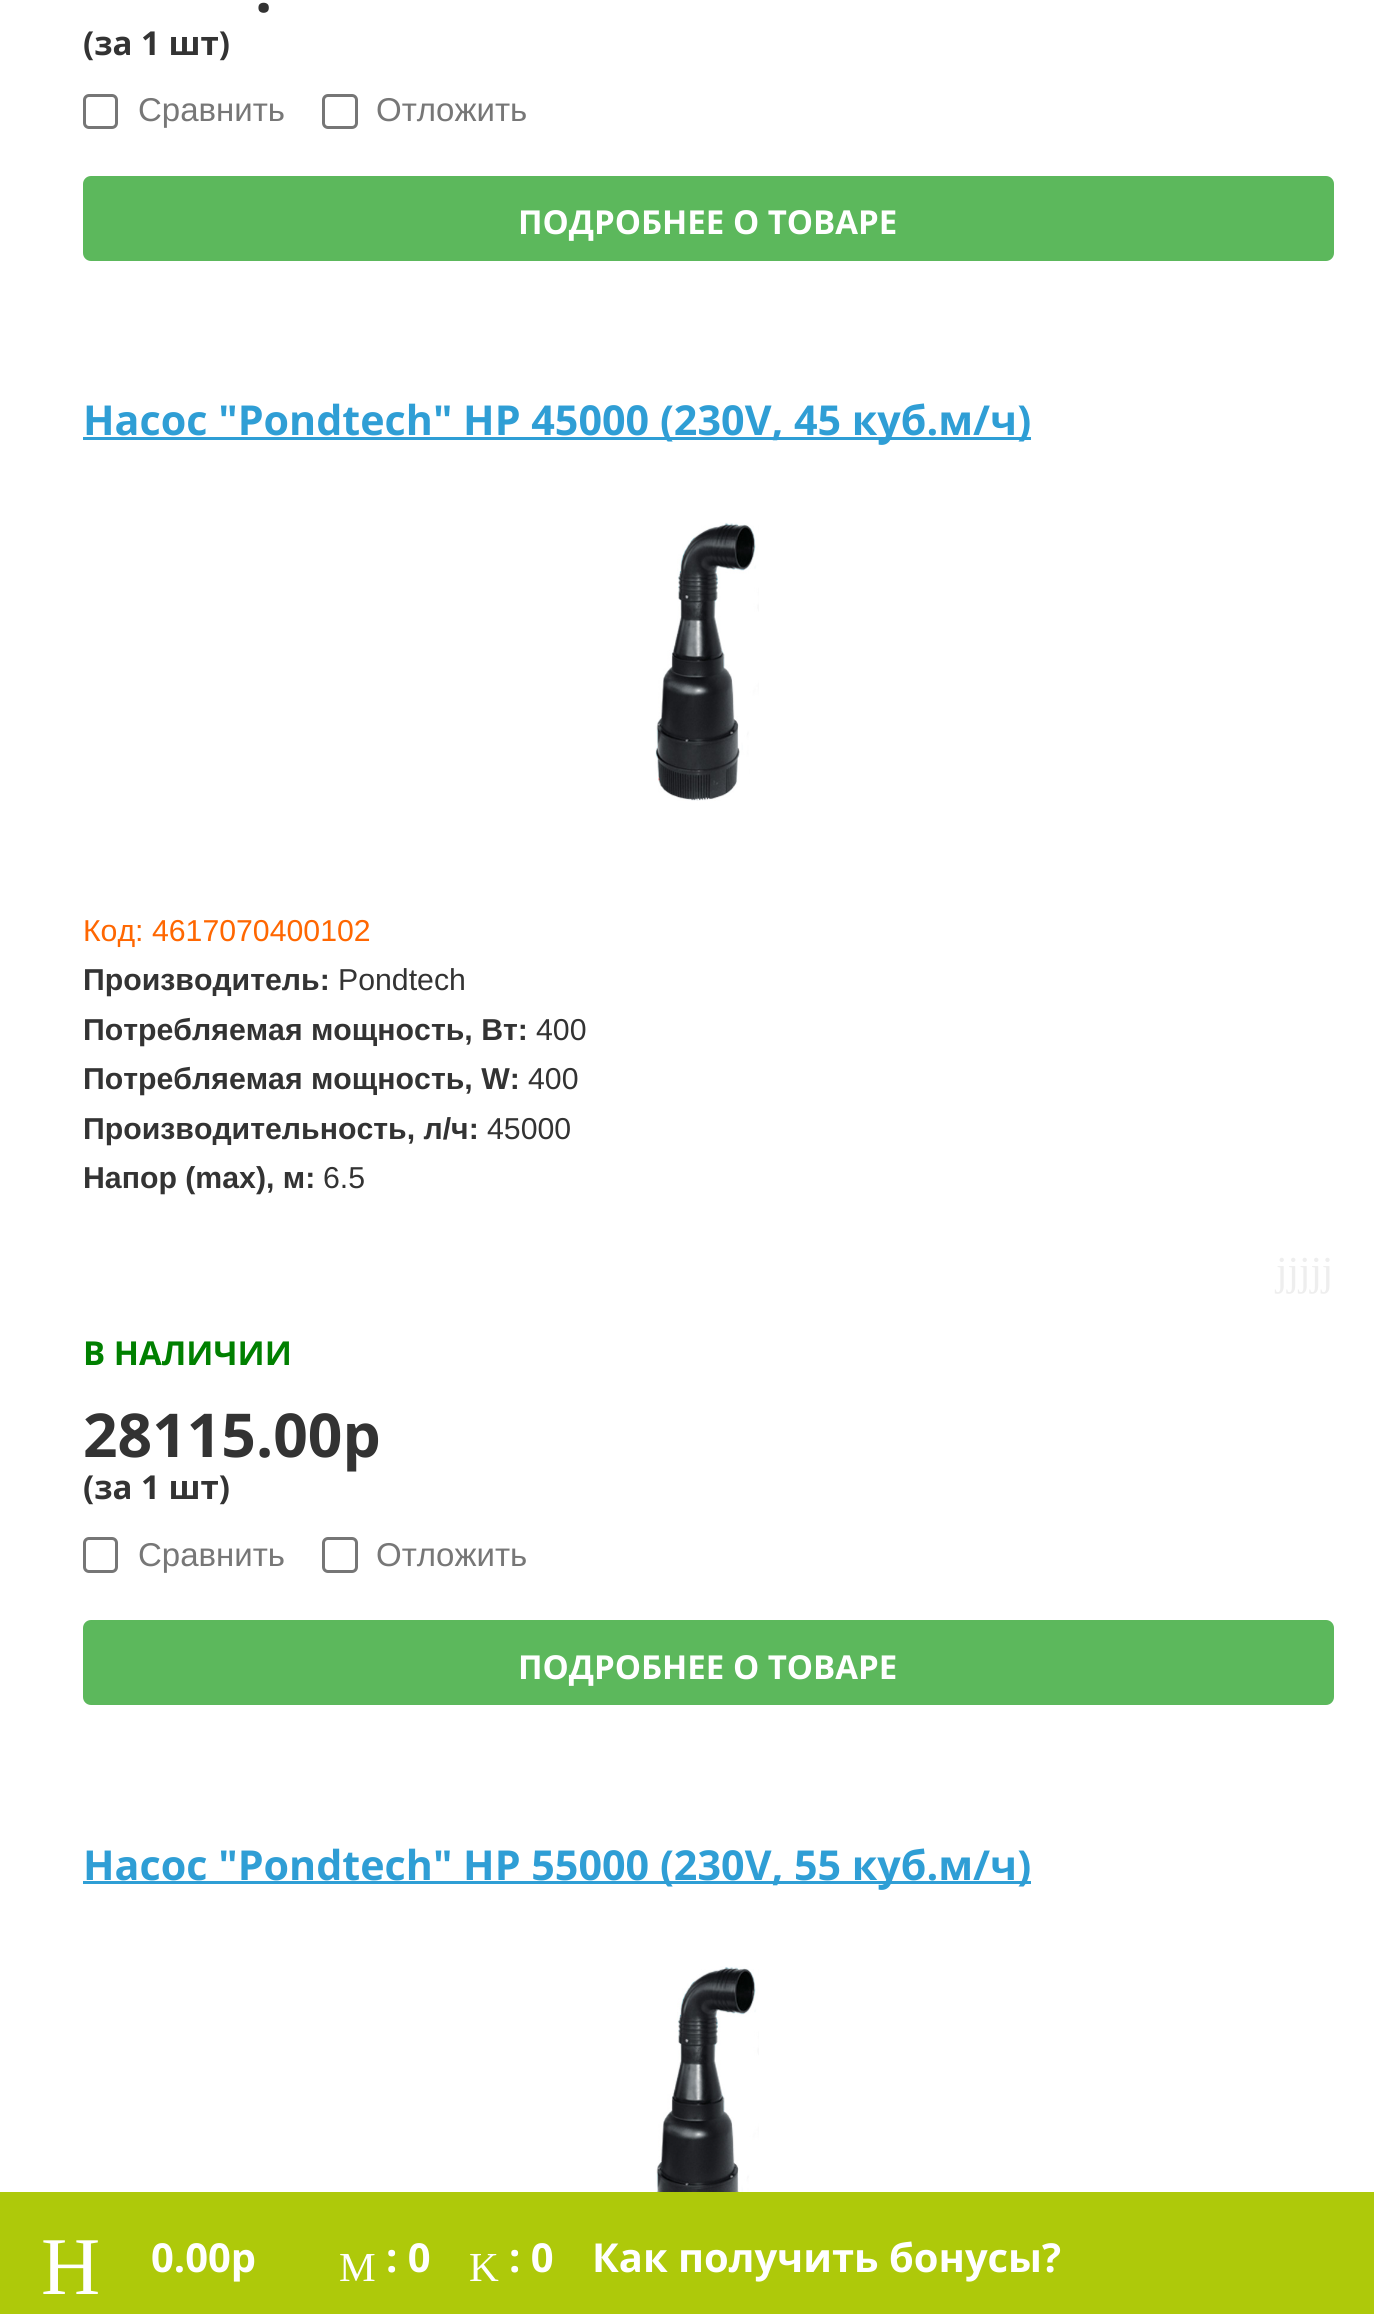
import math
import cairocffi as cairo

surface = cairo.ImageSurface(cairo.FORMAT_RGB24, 1374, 2314)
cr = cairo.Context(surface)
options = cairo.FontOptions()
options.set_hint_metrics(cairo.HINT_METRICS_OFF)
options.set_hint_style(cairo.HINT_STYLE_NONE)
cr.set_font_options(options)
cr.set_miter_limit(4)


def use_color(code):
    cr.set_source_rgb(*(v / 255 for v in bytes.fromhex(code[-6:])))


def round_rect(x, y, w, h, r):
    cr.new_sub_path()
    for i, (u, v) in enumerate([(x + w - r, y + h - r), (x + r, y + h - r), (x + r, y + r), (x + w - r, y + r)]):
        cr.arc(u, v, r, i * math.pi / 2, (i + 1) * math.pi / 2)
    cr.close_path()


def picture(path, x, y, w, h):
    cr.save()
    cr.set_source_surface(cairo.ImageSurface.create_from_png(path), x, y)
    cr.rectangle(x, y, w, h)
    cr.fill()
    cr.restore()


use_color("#ffffff")
cr.paint()
cr.select_font_face("Open Sans", cairo.FONT_SLANT_NORMAL, cairo.FONT_WEIGHT_BOLD)
cr.set_font_size(60.5)
use_color("#333333")
cr.move_to(255, 12)
cr.show_text(".")
cr.set_font_size(33)
cr.move_to(83, 55)
cr.show_text("(за 1 шт)")
round_rect(84.5, 95.5, 32, 32, 4.5)
use_color("#767676")
cr.set_line_width(3)
cr.stroke()
cr.select_font_face("Liberation Sans")
use_color("#777777")
cr.move_to(138, 121)
cr.show_text("Сравнить")
round_rect(323.5, 95.5, 33, 32, 4.5)
use_color("#767676")
cr.stroke()
use_color("#777777")
cr.move_to(376, 121)
cr.show_text("Отложить")
use_color("#5cb85c")
round_rect(83, 176, 1251, 85, 8)
cr.fill()
cr.select_font_face("Open Sans", cairo.FONT_SLANT_NORMAL, cairo.FONT_WEIGHT_BOLD)
use_color("#ffffff")
cr.move_to(518, 234)
cr.show_text("ПОДРОБНЕЕ О ТОВАРЕ")
use_color("#2f9ed5")
cr.rectangle(83, 437, 948, 3)
cr.fill()
cr.set_font_size(41.25)
cr.move_to(83, 435)
cr.show_text("Насос \"Pondtech\" HP 45000 (230V, 45 куб.м/ч)")
picture("img1.png", 655, 522, 104, 279)
cr.select_font_face("Liberation Sans")
cr.set_font_size(30.25)
use_color("#ff6701")
cr.move_to(83, 941)
cr.show_text("Код: 4617070400102")
cr.select_font_face("Liberation Sans", cairo.FONT_SLANT_NORMAL, cairo.FONT_WEIGHT_BOLD)
use_color("#333333")
cr.move_to(83, 990)
cr.show_text("Производитель:")
cr.select_font_face("Liberation Sans")
cr.move_to(338, 990)
cr.show_text("Pondtech")
cr.select_font_face("Liberation Sans", cairo.FONT_SLANT_NORMAL, cairo.FONT_WEIGHT_BOLD)
cr.move_to(83, 1040)
cr.show_text("Потребляемая мощность, Вт:")
cr.select_font_face("Liberation Sans")
cr.move_to(536, 1040)
cr.show_text("400")
cr.select_font_face("Liberation Sans", cairo.FONT_SLANT_NORMAL, cairo.FONT_WEIGHT_BOLD)
cr.move_to(83, 1089)
cr.show_text("Потребляемая мощность, W:")
cr.select_font_face("Liberation Sans")
cr.move_to(528, 1089)
cr.show_text("400")
cr.select_font_face("Liberation Sans", cairo.FONT_SLANT_NORMAL, cairo.FONT_WEIGHT_BOLD)
cr.move_to(83, 1139)
cr.show_text("Производительность, л/ч:")
cr.select_font_face("Liberation Sans")
cr.move_to(487, 1139)
cr.show_text("45000")
cr.select_font_face("Liberation Sans", cairo.FONT_SLANT_NORMAL, cairo.FONT_WEIGHT_BOLD)
cr.move_to(83, 1188)
cr.show_text("Напор (max), м:")
cr.select_font_face("Liberation Sans")
cr.move_to(323, 1188)
cr.show_text("6.5")
cr.select_font_face("Liberation Serif")
cr.set_font_size(41.25)
use_color("#eeeeee")
cr.move_to(1276, 1285)
cr.show_text("jjjjj")
cr.select_font_face("Open Sans", cairo.FONT_SLANT_NORMAL, cairo.FONT_WEIGHT_BOLD)
cr.set_font_size(33)
use_color("#008000")
cr.move_to(83, 1365)
cr.show_text("В НАЛИЧИИ")
cr.set_font_size(60.5)
use_color("#333333")
cr.move_to(83, 1457)
cr.show_text("28115.00р")
cr.set_font_size(33)
cr.move_to(83, 1499)
cr.show_text("(за 1 шт)")
round_rect(84.5, 1538.5, 32, 33, 4.5)
use_color("#767676")
cr.stroke()
cr.select_font_face("Liberation Sans")
use_color("#777777")
cr.move_to(138, 1566)
cr.show_text("Сравнить")
round_rect(323.5, 1538.5, 33, 33, 4.5)
use_color("#767676")
cr.stroke()
use_color("#777777")
cr.move_to(376, 1566)
cr.show_text("Отложить")
use_color("#5cb85c")
round_rect(83, 1620, 1251, 85, 8)
cr.fill()
cr.select_font_face("Open Sans", cairo.FONT_SLANT_NORMAL, cairo.FONT_WEIGHT_BOLD)
use_color("#ffffff")
cr.move_to(518, 1679)
cr.show_text("ПОДРОБНЕЕ О ТОВАРЕ")
use_color("#2f9ed5")
cr.rectangle(83, 1881, 948, 3)
cr.fill()
cr.set_font_size(41.25)
cr.move_to(83, 1880)
cr.show_text("Насос \"Pondtech\" HP 55000 (230V, 55 куб.м/ч)")
picture("img2.png", 655, 1966, 104, 226)
use_color("#aec90a")
cr.rectangle(0, 2192, 1374, 122)
cr.fill()
cr.select_font_face("Liberation Serif")
cr.set_font_size(82)
use_color("#ffffff")
cr.move_to(41, 2294)
cr.show_text("H")
cr.select_font_face("Open Sans", cairo.FONT_SLANT_NORMAL, cairo.FONT_WEIGHT_BOLD)
cr.set_font_size(39.9)
cr.move_to(151, 2272)
cr.show_text("0.00р")
cr.select_font_face("Liberation Serif")
cr.set_font_size(41.25)
cr.move_to(339, 2281)
cr.show_text("M")
cr.select_font_face("Open Sans", cairo.FONT_SLANT_NORMAL, cairo.FONT_WEIGHT_BOLD)
cr.set_font_size(39.9)
cr.move_to(386, 2272)
cr.show_text(": 0")
cr.select_font_face("Liberation Serif")
cr.set_font_size(41.25)
cr.move_to(469, 2281)
cr.show_text("K")
cr.select_font_face("Open Sans", cairo.FONT_SLANT_NORMAL, cairo.FONT_WEIGHT_BOLD)
cr.set_font_size(39.9)
cr.move_to(509, 2272)
cr.show_text(": 0")
cr.move_to(592, 2272)
cr.show_text("Как получить бонусы?")
surface.write_to_png("result.png")
